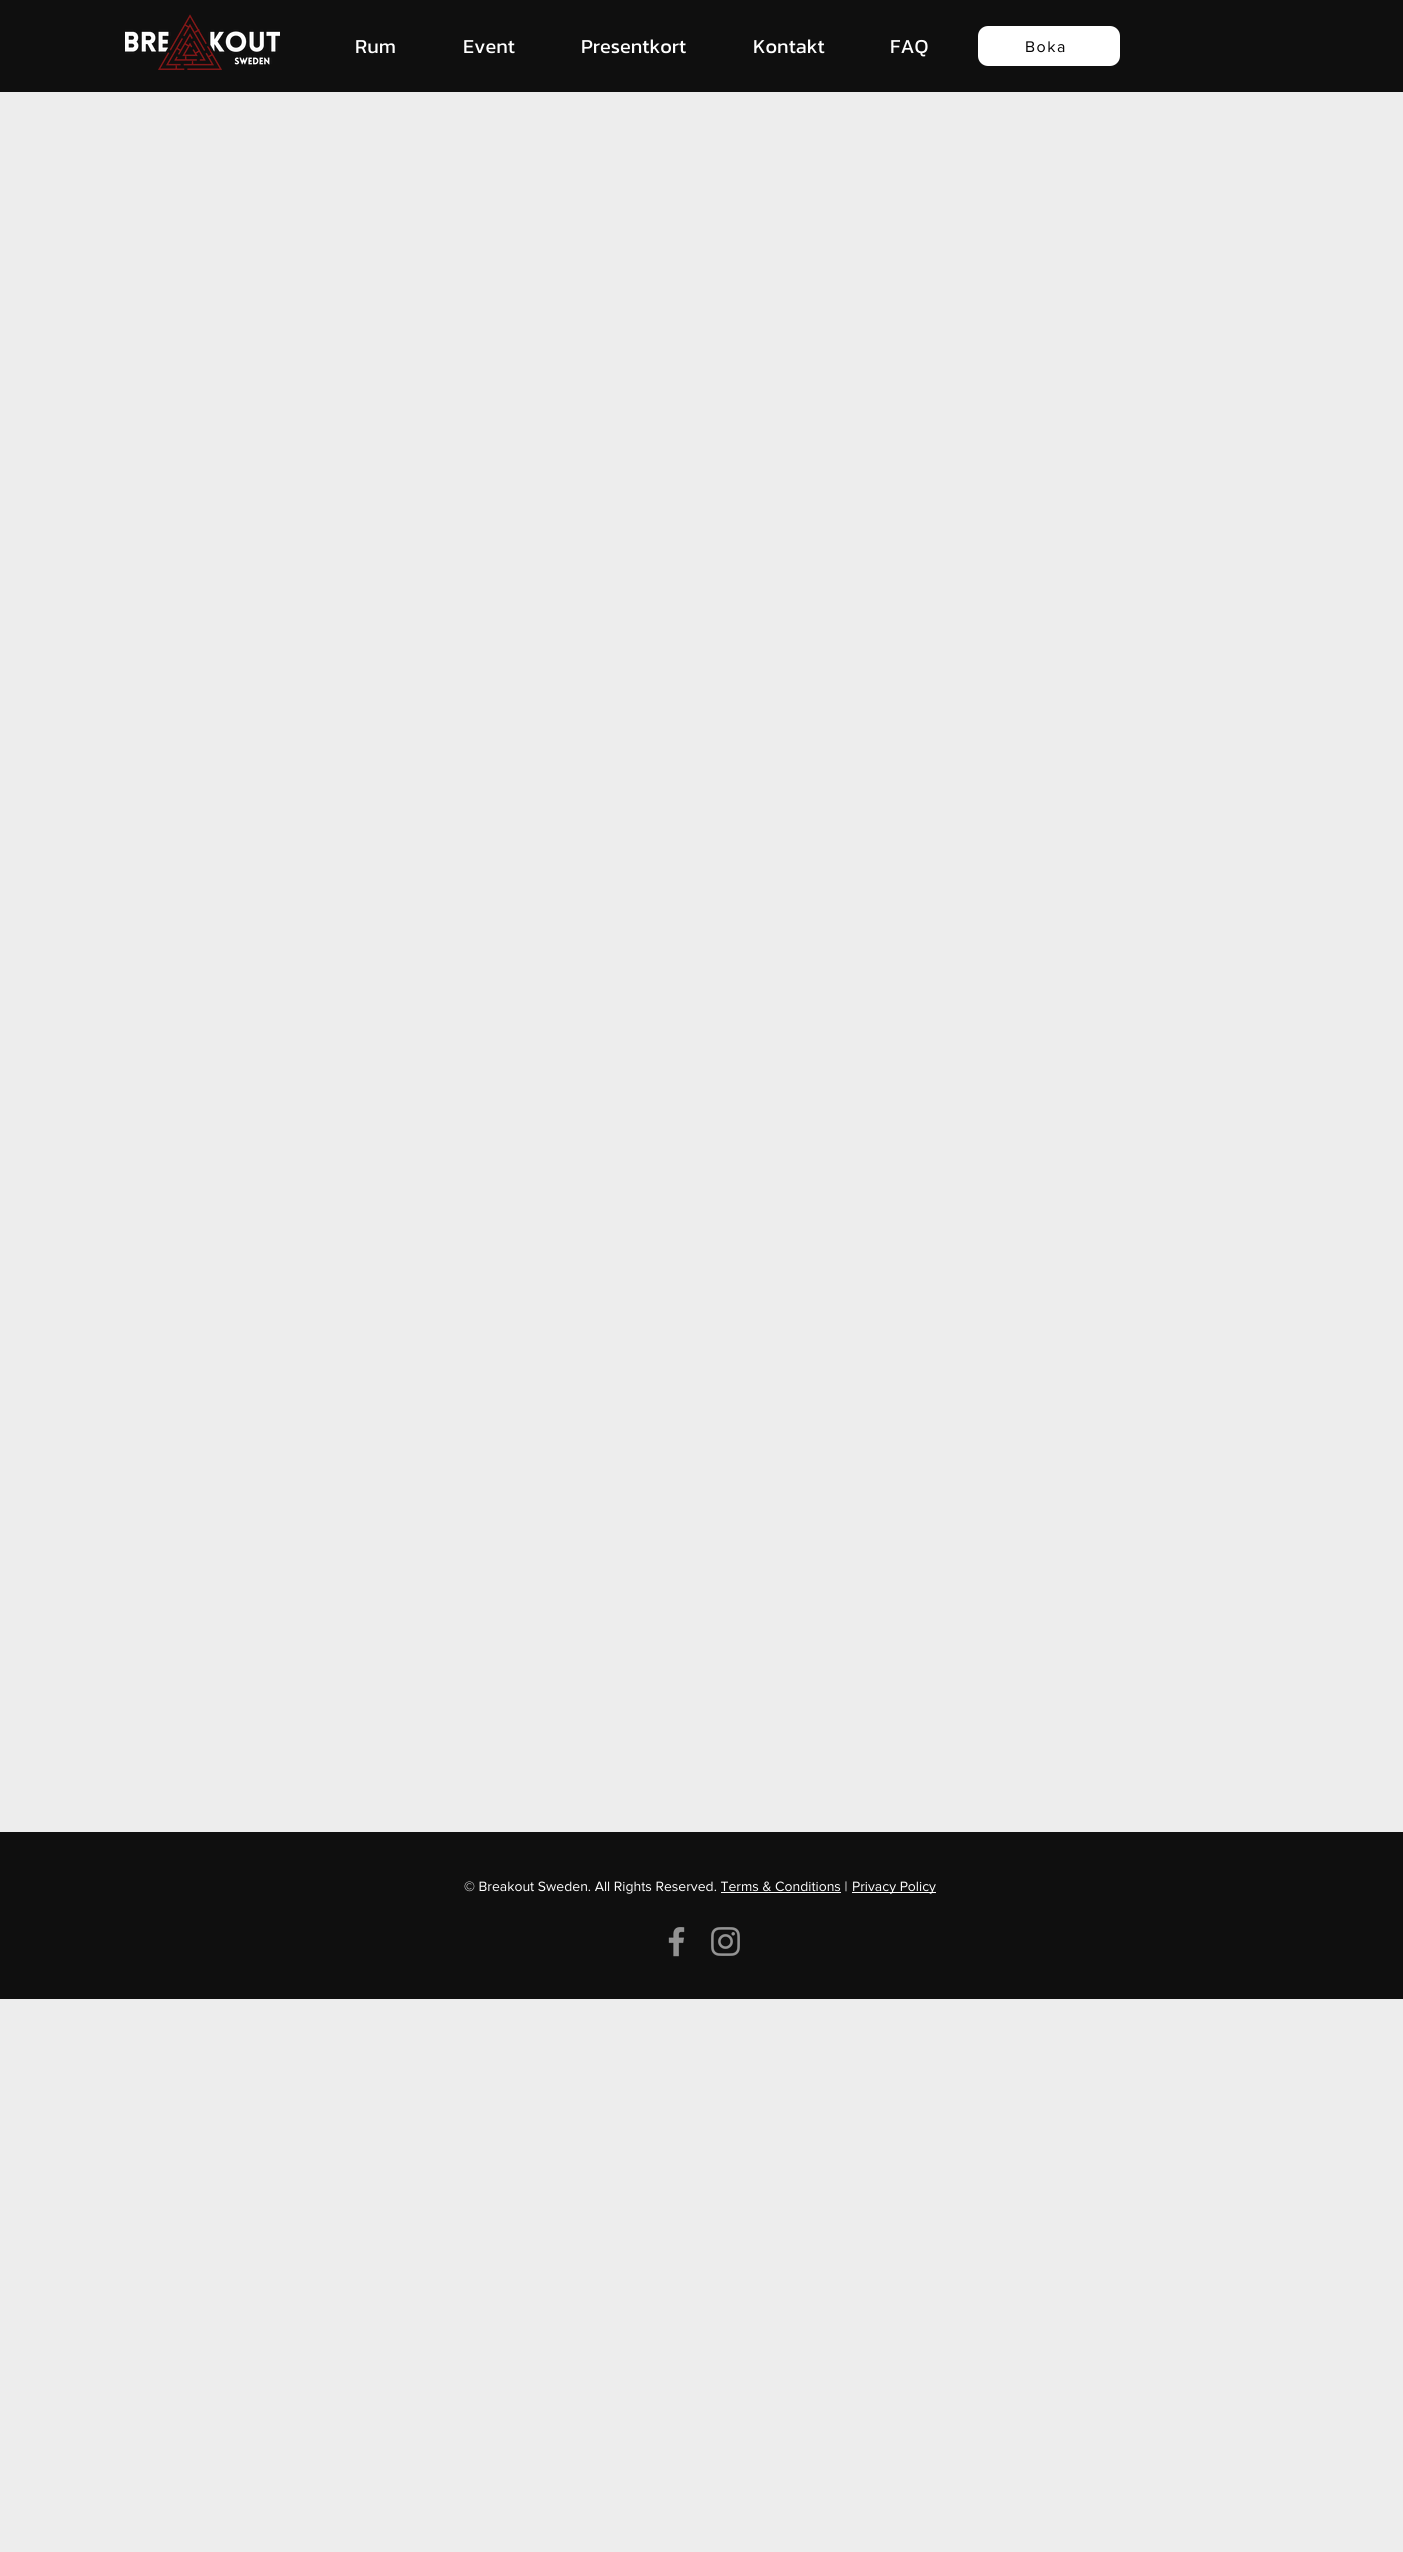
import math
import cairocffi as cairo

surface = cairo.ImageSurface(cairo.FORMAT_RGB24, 1403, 2552)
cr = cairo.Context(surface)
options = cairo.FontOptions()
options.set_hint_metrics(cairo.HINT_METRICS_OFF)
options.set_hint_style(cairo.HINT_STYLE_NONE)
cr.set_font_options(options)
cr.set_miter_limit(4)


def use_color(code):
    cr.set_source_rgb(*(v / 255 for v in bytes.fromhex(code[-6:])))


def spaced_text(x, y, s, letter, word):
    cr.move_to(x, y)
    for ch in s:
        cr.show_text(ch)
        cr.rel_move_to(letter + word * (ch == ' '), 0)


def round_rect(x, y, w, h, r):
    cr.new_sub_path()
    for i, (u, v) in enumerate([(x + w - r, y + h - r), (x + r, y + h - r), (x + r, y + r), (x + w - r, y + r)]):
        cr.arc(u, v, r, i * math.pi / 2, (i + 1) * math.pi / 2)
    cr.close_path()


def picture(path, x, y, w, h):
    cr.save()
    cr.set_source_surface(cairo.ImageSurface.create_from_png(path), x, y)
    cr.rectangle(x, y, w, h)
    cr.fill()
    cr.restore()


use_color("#ededed")
cr.paint()
use_color("#0f0f0f")
cr.rectangle(0, 0, 1403, 92)
cr.fill()
picture("img1.png", 125, 14, 155, 56)
cr.select_font_face("Kanit")
cr.set_font_size(20)
use_color("#ffffff")
cr.move_to(355, 53)
cr.show_text("Rum")
cr.move_to(463, 53)
cr.show_text("Event")
cr.move_to(581, 53)
cr.show_text("Presentkort")
cr.move_to(753, 53)
cr.show_text("Kontakt")
cr.move_to(890, 53)
cr.show_text("FAQ")
round_rect(978, 26, 142, 40, 10)
cr.fill()
cr.select_font_face("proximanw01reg")
cr.set_font_size(16)
use_color("#060506")
spaced_text(1025, 52, "Boka", 1.5, 0)
use_color("#0f0f0f")
cr.rectangle(0, 1832, 1403, 167)
cr.fill()
cr.set_font_size(14)
use_color("#ffffff")
cr.move_to(464, 1891)
cr.show_text("© Breakout Sweden. All Rights Reserved. Terms & Conditions |")
cr.rectangle(852, 1892, 84, 1)
cr.fill()
cr.move_to(852, 1891)
cr.show_text("Privacy Policy")
cr.rectangle(721, 1892, 120, 1)
cr.fill()
picture("img2.png", 668, 1927, 17, 30)
picture("img3.png", 711, 1927, 29, 29)
surface.write_to_png("result.png")
